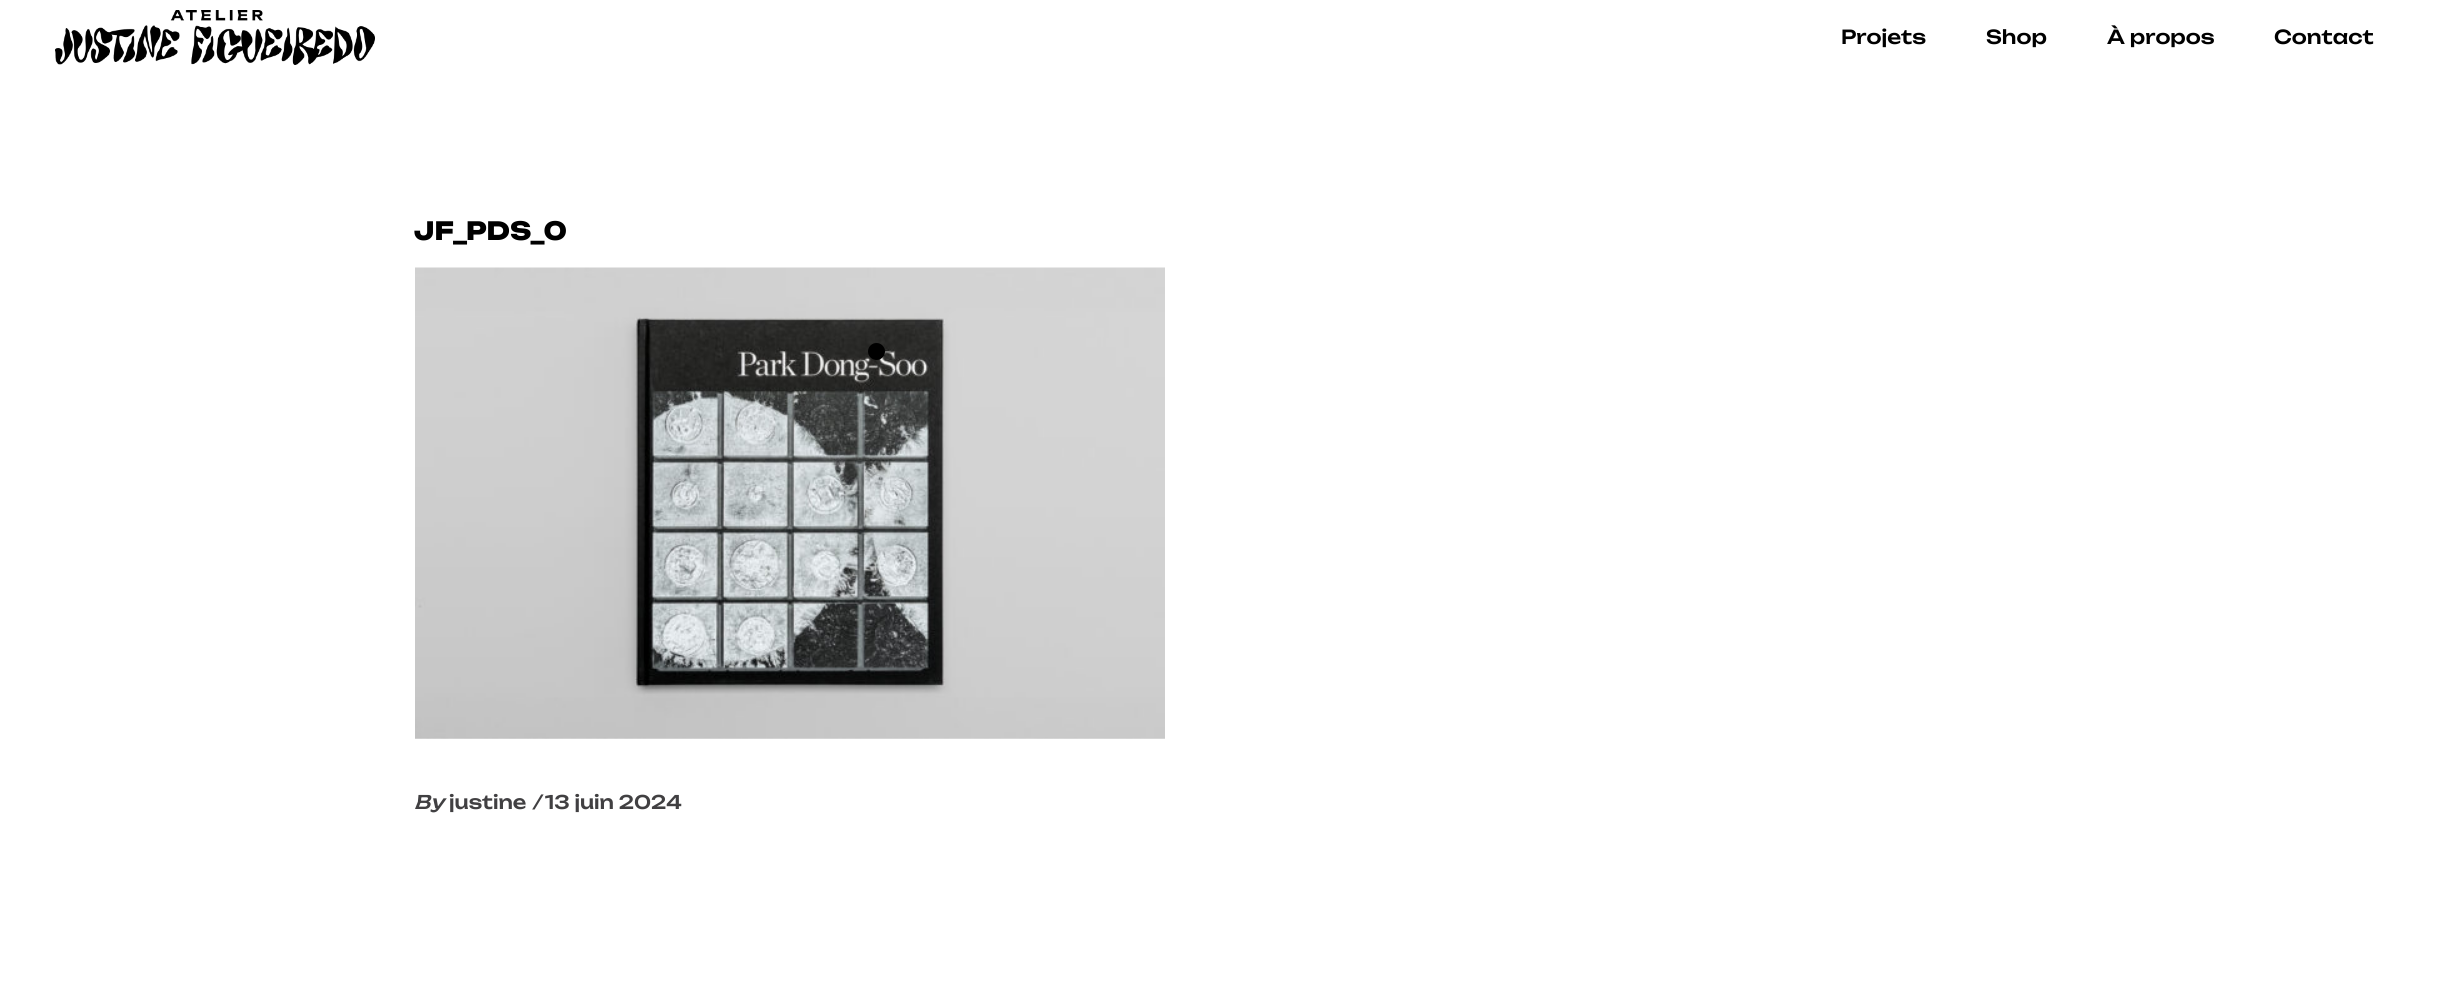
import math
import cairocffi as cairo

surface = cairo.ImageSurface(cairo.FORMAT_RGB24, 2453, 983)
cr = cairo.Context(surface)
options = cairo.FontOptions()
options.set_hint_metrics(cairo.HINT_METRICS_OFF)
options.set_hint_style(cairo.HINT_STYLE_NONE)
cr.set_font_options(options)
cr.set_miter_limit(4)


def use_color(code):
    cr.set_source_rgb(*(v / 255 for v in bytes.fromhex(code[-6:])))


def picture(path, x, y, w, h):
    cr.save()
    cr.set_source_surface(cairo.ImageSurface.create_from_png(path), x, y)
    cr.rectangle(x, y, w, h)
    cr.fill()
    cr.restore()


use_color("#ffffff")
cr.paint()
picture("img1.png", 55, 10, 320, 55)
cr.select_font_face("Unbounded Medium")
cr.set_font_size(19.25)
use_color("#000000")
cr.move_to(1841, 44)
cr.show_text("Projets")
cr.move_to(1986, 44)
cr.show_text("Shop")
cr.move_to(2107, 44)
cr.show_text("À propos")
cr.move_to(2274, 44)
cr.show_text("Contact")
cr.select_font_face("Unbounded ExtraBold")
cr.set_font_size(25)
cr.move_to(414, 240)
cr.show_text("JF_PDS_0")
picture("img2.png", 415, 267, 750, 472)
cr.select_font_face("Unbounded Medium", cairo.FONT_SLANT_ITALIC)
cr.set_font_size(18.75)
use_color("#414042")
cr.move_to(414, 809)
cr.show_text("By")
cr.select_font_face("Unbounded Medium")
cr.move_to(449, 809)
cr.show_text("justine")
cr.select_font_face("Unbounded Medium", cairo.FONT_SLANT_ITALIC)
cr.move_to(532, 809)
cr.show_text("/")
cr.select_font_face("Unbounded Medium")
cr.move_to(545, 809)
cr.show_text("13 juin 2024")
use_color("#000000")
cr.new_path()
cr.arc(876.5, 351.5, 8.5, 0, 2 * math.pi)
cr.fill()
surface.write_to_png("result.png")
